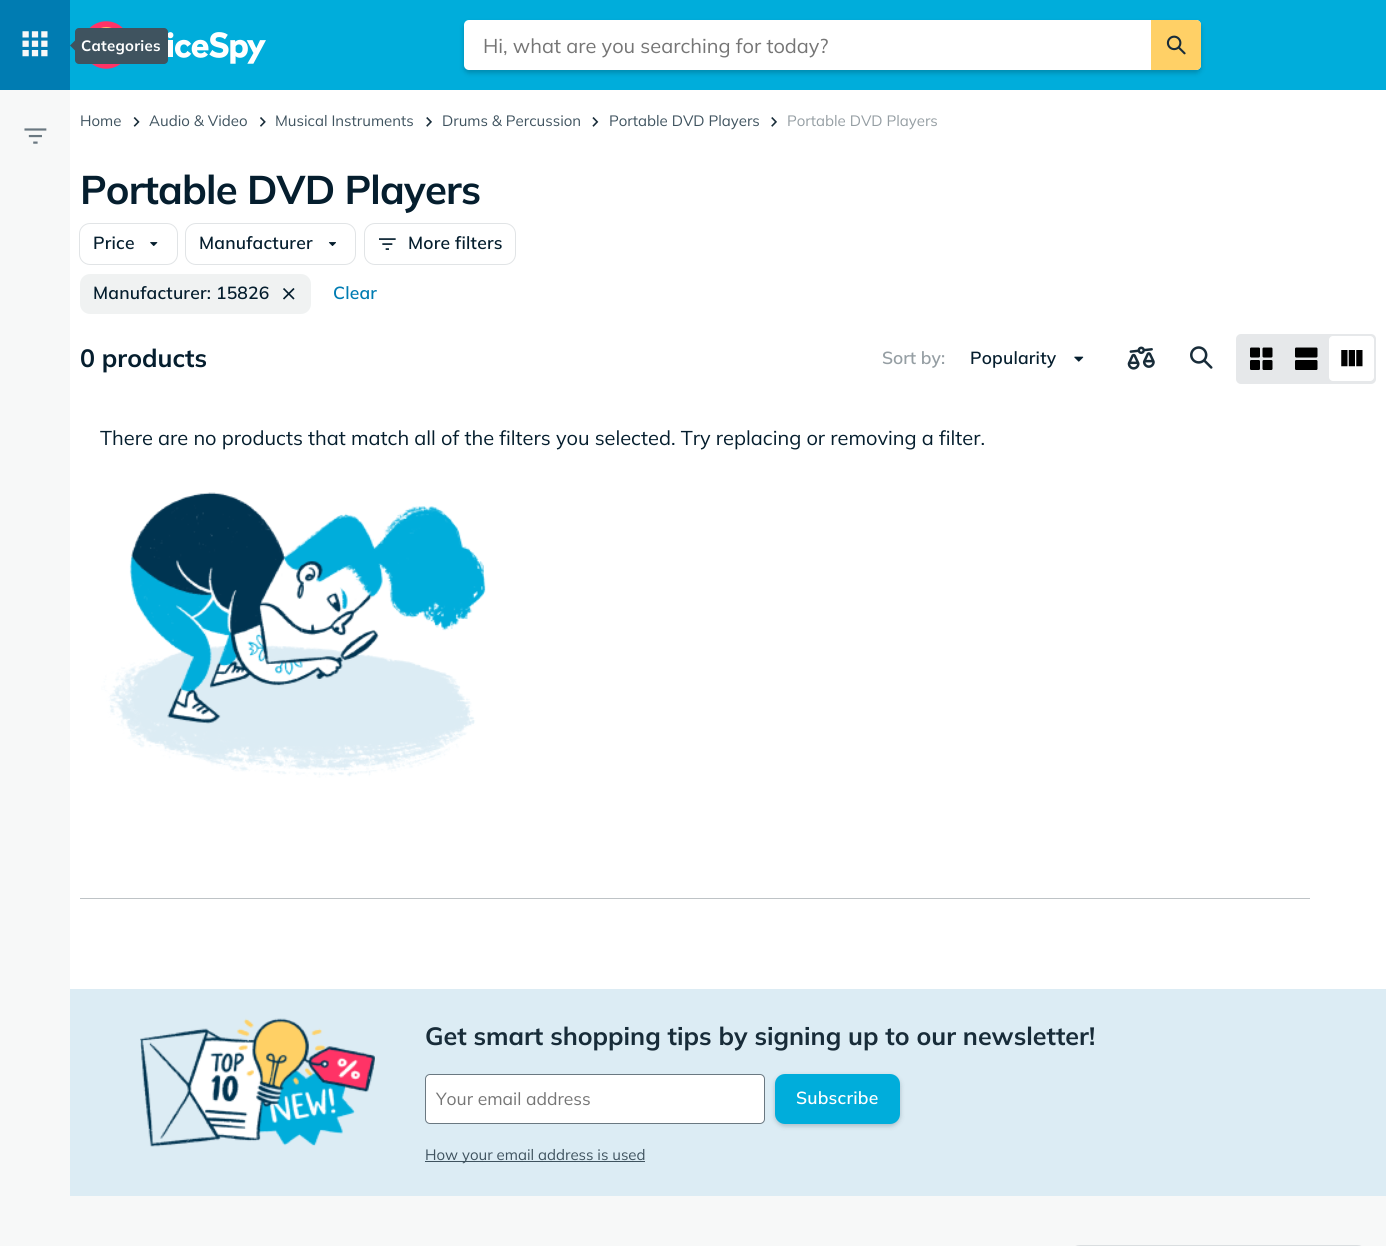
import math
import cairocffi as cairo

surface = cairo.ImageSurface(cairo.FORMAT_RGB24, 1386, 1246)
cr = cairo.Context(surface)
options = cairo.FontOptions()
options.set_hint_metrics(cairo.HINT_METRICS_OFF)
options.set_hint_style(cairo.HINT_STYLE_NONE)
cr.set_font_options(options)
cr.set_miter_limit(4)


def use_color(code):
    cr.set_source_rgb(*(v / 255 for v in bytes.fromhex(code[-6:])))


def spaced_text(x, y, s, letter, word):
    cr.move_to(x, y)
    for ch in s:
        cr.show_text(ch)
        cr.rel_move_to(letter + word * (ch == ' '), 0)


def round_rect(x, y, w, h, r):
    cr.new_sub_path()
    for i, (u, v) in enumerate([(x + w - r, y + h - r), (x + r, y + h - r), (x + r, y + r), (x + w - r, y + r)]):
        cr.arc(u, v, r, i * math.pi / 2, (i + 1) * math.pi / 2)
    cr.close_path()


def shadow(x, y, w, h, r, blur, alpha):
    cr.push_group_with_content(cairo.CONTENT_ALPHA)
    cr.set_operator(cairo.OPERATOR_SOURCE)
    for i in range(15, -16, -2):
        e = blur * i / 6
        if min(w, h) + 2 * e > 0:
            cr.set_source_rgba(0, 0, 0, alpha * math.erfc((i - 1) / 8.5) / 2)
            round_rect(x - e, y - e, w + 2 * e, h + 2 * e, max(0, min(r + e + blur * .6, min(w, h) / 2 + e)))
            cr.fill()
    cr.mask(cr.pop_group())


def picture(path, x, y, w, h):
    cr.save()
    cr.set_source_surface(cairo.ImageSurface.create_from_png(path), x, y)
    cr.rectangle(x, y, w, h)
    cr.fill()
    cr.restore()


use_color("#ffffff")
cr.paint()
use_color("#00addb")
cr.rectangle(70, 0, 1316, 90)
cr.fill()
use_color("#007cb2")
cr.rectangle(0, 0, 70, 90)
cr.fill()
picture("img1.png", 22, 31, 26, 26)
picture("img2.png", 89, 21, 177, 48)
use_color("#3f535f")
round_rect(75, 28, 93, 36, 4)
cr.fill()
cr.new_path()
cr.move_to(75, 40.5)
cr.line_to(75, 50.5)
cr.line_to(70, 45.5)
cr.close_path()
cr.fill()
cr.select_font_face("Mulish", cairo.FONT_SLANT_NORMAL, cairo.FONT_WEIGHT_BOLD)
cr.set_font_size(15)
use_color("#ffffff")
spaced_text(81, 51, "Categories", 0.25, 0)
use_color("#000000")
shadow(464, 23, 737, 50, 5, 2.5, 0.2)
use_color("#ffffff")
round_rect(464, 20, 737, 50, 5)
cr.fill()
cr.select_font_face("Mulish")
cr.set_font_size(20)
use_color("#757575")
cr.move_to(483, 53)
cr.show_text("Hi, what are you searching for today?")
use_color("#ffd066")
cr.new_path()
cr.move_to(1151, 20)
cr.line_to(1196, 20)
cr.curve_to(1199, 20, 1201, 22, 1201, 25)
cr.line_to(1201, 65)
cr.curve_to(1201, 68, 1199, 70, 1196, 70)
cr.line_to(1151, 70)
cr.close_path()
cr.fill()
picture("img3.png", 1166, 35, 20, 20)
use_color("#f7f8f8")
cr.rectangle(0, 90, 70, 1156)
cr.fill()
picture("img4.png", 24, 128, 23, 16)
cr.set_font_size(15)
use_color("#3f535f")
cr.move_to(80, 126)
cr.show_text("Home")
picture("img5.png", 133, 117, 7, 10)
cr.move_to(149, 126)
cr.show_text("Audio & Video")
picture("img6.png", 260, 117, 6, 10)
cr.move_to(275, 126)
cr.show_text("Musical Instruments")
picture("img7.png", 426, 117, 6, 10)
cr.move_to(442, 126)
cr.show_text("Drums & Percussion")
picture("img8.png", 592, 117, 7, 10)
cr.move_to(609, 126)
cr.show_text("Portable DVD Players")
picture("img7.png", 771, 117, 6, 10)
use_color("#959ea3")
cr.move_to(787, 126)
cr.show_text("Portable DVD Players")
cr.select_font_face("Mulish", cairo.FONT_SLANT_NORMAL, cairo.FONT_WEIGHT_BOLD)
cr.set_font_size(40)
use_color("#051e2e")
spaced_text(80, 204, "Portable DVD Players", -0.8, 0)
round_rect(79.5, 223.5, 98, 41, 10.5)
use_color("#e1e4e6")
cr.set_line_width(1)
cr.stroke()
cr.select_font_face("Mulish SemiBold")
cr.set_font_size(17.5)
use_color("#051e2e")
spaced_text(93, 249, "Price", 0.2, 0)
picture("img9.png", 150, 242, 8, 4)
round_rect(185.5, 223.5, 170, 41, 10.5)
use_color("#e1e4e6")
cr.stroke()
use_color("#051e2e")
spaced_text(199, 249, "Manufacturer", 0.2, 0)
picture("img10.png", 328, 242, 8, 4)
round_rect(364.5, 223.5, 151, 41, 10.5)
use_color("#e1e4e6")
cr.stroke()
picture("img11.png", 379, 238, 17, 12)
use_color("#051e2e")
spaced_text(408, 249, "More filters", 0.2, 0)
use_color("#f0f2f2")
round_rect(80, 274, 231, 40, 10)
cr.fill()
use_color("#051e2e")
spaced_text(93, 299, "Manufacturer: 15826", 0.2, 0)
picture("img12.png", 283, 288, 12, 12)
use_color("#007cb2")
spaced_text(333, 299, "Clear", 0.2, 0)
cr.select_font_face("Mulish", cairo.FONT_SLANT_NORMAL, cairo.FONT_WEIGHT_BOLD)
cr.set_font_size(25)
use_color("#051e2e")
cr.move_to(80, 367)
cr.show_text("0 products")
cr.select_font_face("Mulish SemiBold")
cr.set_font_size(17.5)
use_color("#959ea3")
cr.move_to(882, 364)
cr.show_text("Sort by:")
use_color("#051e2e")
spaced_text(970, 364, "Popularity", 0.2, 0)
picture("img13.png", 1074, 356, 10, 6)
picture("img14.png", 1127, 346, 28, 24)
picture("img15.png", 1190, 346, 23, 23)
use_color("#e6e8ea")
round_rect(1236, 334, 140, 50, 5)
cr.fill()
picture("img16.png", 1250, 347, 23, 23)
picture("img17.png", 1295, 347, 23, 23)
use_color("#ffffff")
round_rect(1329, 336, 45, 45, 4)
cr.fill()
picture("img18.png", 1341, 350, 22, 17)
cr.select_font_face("Mulish")
cr.set_font_size(20)
use_color("#051e2e")
cr.move_to(100, 445)
cr.show_text("There are no products that match all of the filters you selected. Try replacing or removing a filter.")
picture("img19.png", 101, 492, 385, 286)
use_color("#bec3c6")
cr.rectangle(80, 898, 1230, 1)
cr.fill()
use_color("#dcecf4")
cr.rectangle(70, 989, 1316, 207)
cr.fill()
picture("img20.png", 140, 1018, 235, 129)
cr.select_font_face("Mulish", cairo.FONT_SLANT_NORMAL, cairo.FONT_WEIGHT_BOLD)
cr.set_font_size(25)
use_color("#182c39")
cr.move_to(425, 1045)
cr.show_text("Get smart shopping tips by signing up to our newsletter!")
use_color("#ffffff")
round_rect(425.5, 1074.5, 339, 49, 4.5)
cr.fill_preserve()
use_color("#6a7881")
cr.stroke()
cr.select_font_face("Mulish")
cr.set_font_size(17.5)
use_color("#757575")
cr.move_to(436, 1105)
cr.show_text("Your email address")
use_color("#051e2e")
shadow(775, 1076, 125, 50, 10, 2.5, 0.24)
use_color("#00addb")
round_rect(775, 1074, 125, 50, 10)
cr.fill()
cr.select_font_face("Mulish SemiBold")
use_color("#ffffff")
spaced_text(796, 1104, "Subscribe", 0.2, 0)
use_color("#3f535f")
cr.rectangle(425, 1161, 220, 1)
cr.fill()
cr.select_font_face("Mulish")
cr.set_font_size(15)
cr.move_to(425, 1160)
cr.show_text("How your email address is used")
use_color("#f7f8f8")
cr.rectangle(70, 1196, 1316, 50)
cr.fill()
round_rect(1069.5, 1245.5, 298, 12, 10.5)
use_color("#dadee0")
cr.stroke()
surface.write_to_png("result.png")
